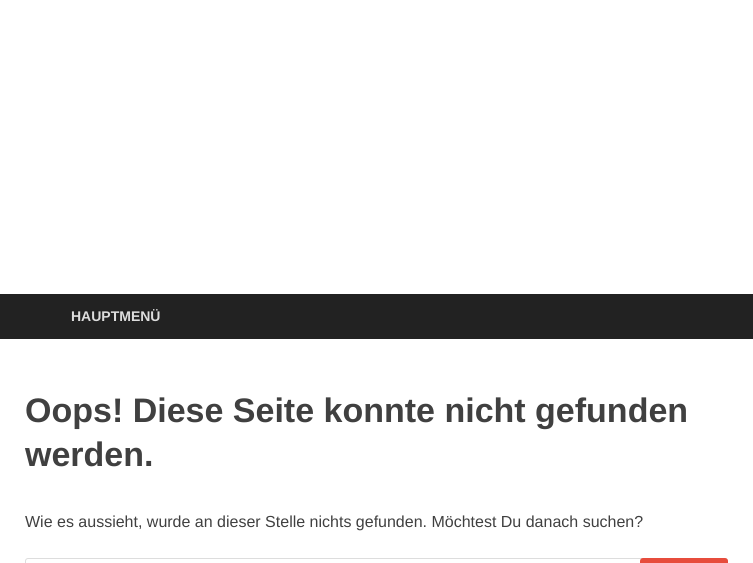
import math
import cairocffi as cairo

surface = cairo.ImageSurface(cairo.FORMAT_RGB24, 753, 563)
cr = cairo.Context(surface)
options = cairo.FontOptions()
options.set_hint_metrics(cairo.HINT_METRICS_OFF)
options.set_hint_style(cairo.HINT_STYLE_NONE)
cr.set_font_options(options)
cr.set_miter_limit(4)


def use_color(code):
    cr.set_source_rgb(*(v / 255 for v in bytes.fromhex(code[-6:])))


def round_rect(x, y, w, h, r):
    cr.new_sub_path()
    for i, (u, v) in enumerate([(x + w - r, y + h - r), (x + r, y + h - r), (x + r, y + r), (x + w - r, y + r)]):
        cr.arc(u, v, r, i * math.pi / 2, (i + 1) * math.pi / 2)
    cr.close_path()


use_color("#ffffff")
cr.paint()
use_color("#222222")
cr.rectangle(0, 294, 753, 45)
cr.fill()
cr.select_font_face("Liberation Sans", cairo.FONT_SLANT_NORMAL, cairo.FONT_WEIGHT_BOLD)
cr.set_font_size(14)
use_color("#dddddd")
cr.move_to(71, 321)
cr.show_text("HAUPTMENÜ")
cr.set_font_size(34)
use_color("#404040")
cr.move_to(25, 422)
cr.show_text("Oops! Diese Seite konnte nicht gefunden")
cr.move_to(25, 466)
cr.show_text("werden.")
cr.select_font_face("Liberation Sans")
cr.set_font_size(16)
cr.move_to(25, 527)
cr.show_text("Wie es aussieht, wurde an dieser Stelle nichts gefunden. Möchtest Du danach suchen?")
round_rect(25.5, 558.5, 702, 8, 2.5)
use_color("#dddddd")
cr.set_line_width(1)
cr.stroke()
use_color("#e74c3c")
round_rect(640, 558, 88, 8, 3)
cr.fill()
surface.write_to_png("result.png")
